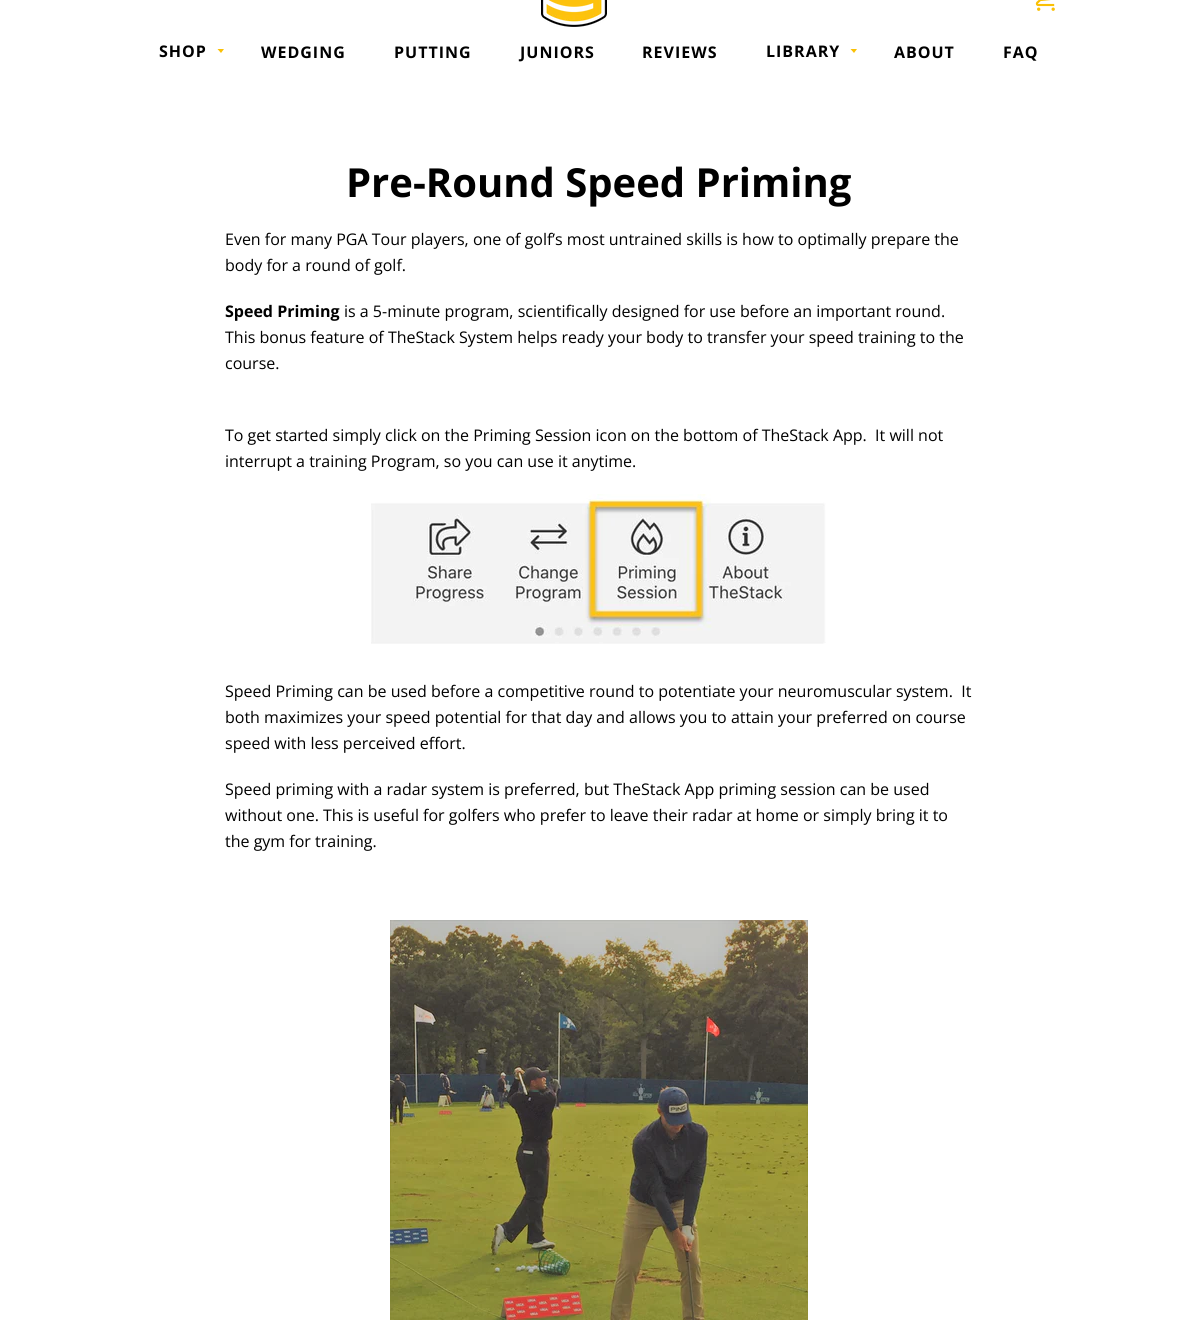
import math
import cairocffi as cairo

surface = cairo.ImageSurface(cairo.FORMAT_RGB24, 1198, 1320)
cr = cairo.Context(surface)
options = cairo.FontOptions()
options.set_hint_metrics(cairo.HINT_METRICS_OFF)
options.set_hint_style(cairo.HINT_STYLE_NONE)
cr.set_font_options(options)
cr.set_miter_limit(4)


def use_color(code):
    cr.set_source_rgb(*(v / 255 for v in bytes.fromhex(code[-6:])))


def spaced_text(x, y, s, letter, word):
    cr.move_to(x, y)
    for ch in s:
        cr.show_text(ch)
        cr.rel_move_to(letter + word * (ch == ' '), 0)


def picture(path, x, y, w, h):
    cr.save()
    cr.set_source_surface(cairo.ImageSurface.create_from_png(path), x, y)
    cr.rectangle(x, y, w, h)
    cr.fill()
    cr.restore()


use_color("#ffffff")
cr.paint()
picture("img1.png", 541, 0, 66, 27)
picture("img2.png", 1035, 0, 20, 11)
cr.select_font_face("Open Sans", cairo.FONT_SLANT_NORMAL, cairo.FONT_WEIGHT_BOLD)
cr.set_font_size(16)
use_color("#000000")
spaced_text(159, 57, "SHOP", 1, 0)
use_color("#fac005")
cr.new_path()
cr.move_to(217.5, 49)
cr.line_to(221, 53)
cr.line_to(224, 49)
cr.close_path()
cr.fill()
use_color("#000000")
spaced_text(261, 58, "WEDGING", 1, 0)
spaced_text(394, 58, "PUTTING", 1, 0)
spaced_text(520, 58, "JUNIORS", 1, 0)
spaced_text(642, 58, "REVIEWS", 1, 0)
spaced_text(766, 57, "LIBRARY", 1, 0)
use_color("#fac005")
cr.new_path()
cr.move_to(850.5, 49)
cr.line_to(854, 53)
cr.line_to(857, 49)
cr.close_path()
cr.fill()
use_color("#000000")
spaced_text(894, 58, "ABOUT", 1, 0)
spaced_text(1003, 58, "FAQ", 1, 0)
cr.set_font_size(40)
cr.move_to(346, 197)
cr.show_text("Pre-Round Speed Priming")
cr.select_font_face("Open Sans")
cr.set_font_size(16)
cr.move_to(225, 245)
cr.show_text("Even for many PGA Tour players, one of golf’s most untrained skills is how to optimally prepare the")
cr.move_to(225, 271)
cr.show_text("body for a round of golf.")
cr.select_font_face("Open Sans", cairo.FONT_SLANT_NORMAL, cairo.FONT_WEIGHT_BOLD)
cr.move_to(225, 317)
cr.show_text("Speed Priming")
cr.select_font_face("Open Sans")
cr.move_to(344, 317)
cr.show_text("is a 5-minute program, scientifically designed for use before an important round.")
cr.move_to(225, 343)
cr.show_text("This bonus feature of TheStack System helps ready your body to transfer your speed training to the")
cr.move_to(225, 369)
cr.show_text("course.")
cr.move_to(225, 441)
cr.show_text("To get started simply click on the Priming Session icon on the bottom of TheStack App.  It will not")
cr.move_to(225, 467)
cr.show_text("interrupt a training Program, so you can use it anytime.")
picture("img3.png", 371, 494, 455, 150)
cr.move_to(225, 697)
cr.show_text("Speed Priming can be used before a competitive round to potentiate your neuromuscular system.  It")
cr.move_to(225, 723)
cr.show_text("both maximizes your speed potential for that day and allows you to attain your preferred on course")
cr.move_to(225, 749)
cr.show_text("speed with less perceived effort.")
cr.move_to(225, 795)
cr.show_text("Speed priming with a radar system is preferred, but TheStack App priming session can be used")
cr.move_to(225, 821)
cr.show_text("without one. This is useful for golfers who prefer to leave their radar at home or simply bring it to")
cr.move_to(225, 847)
cr.show_text("the gym for training.")
picture("img4.png", 390, 920, 418, 400)
surface.write_to_png("result.png")
